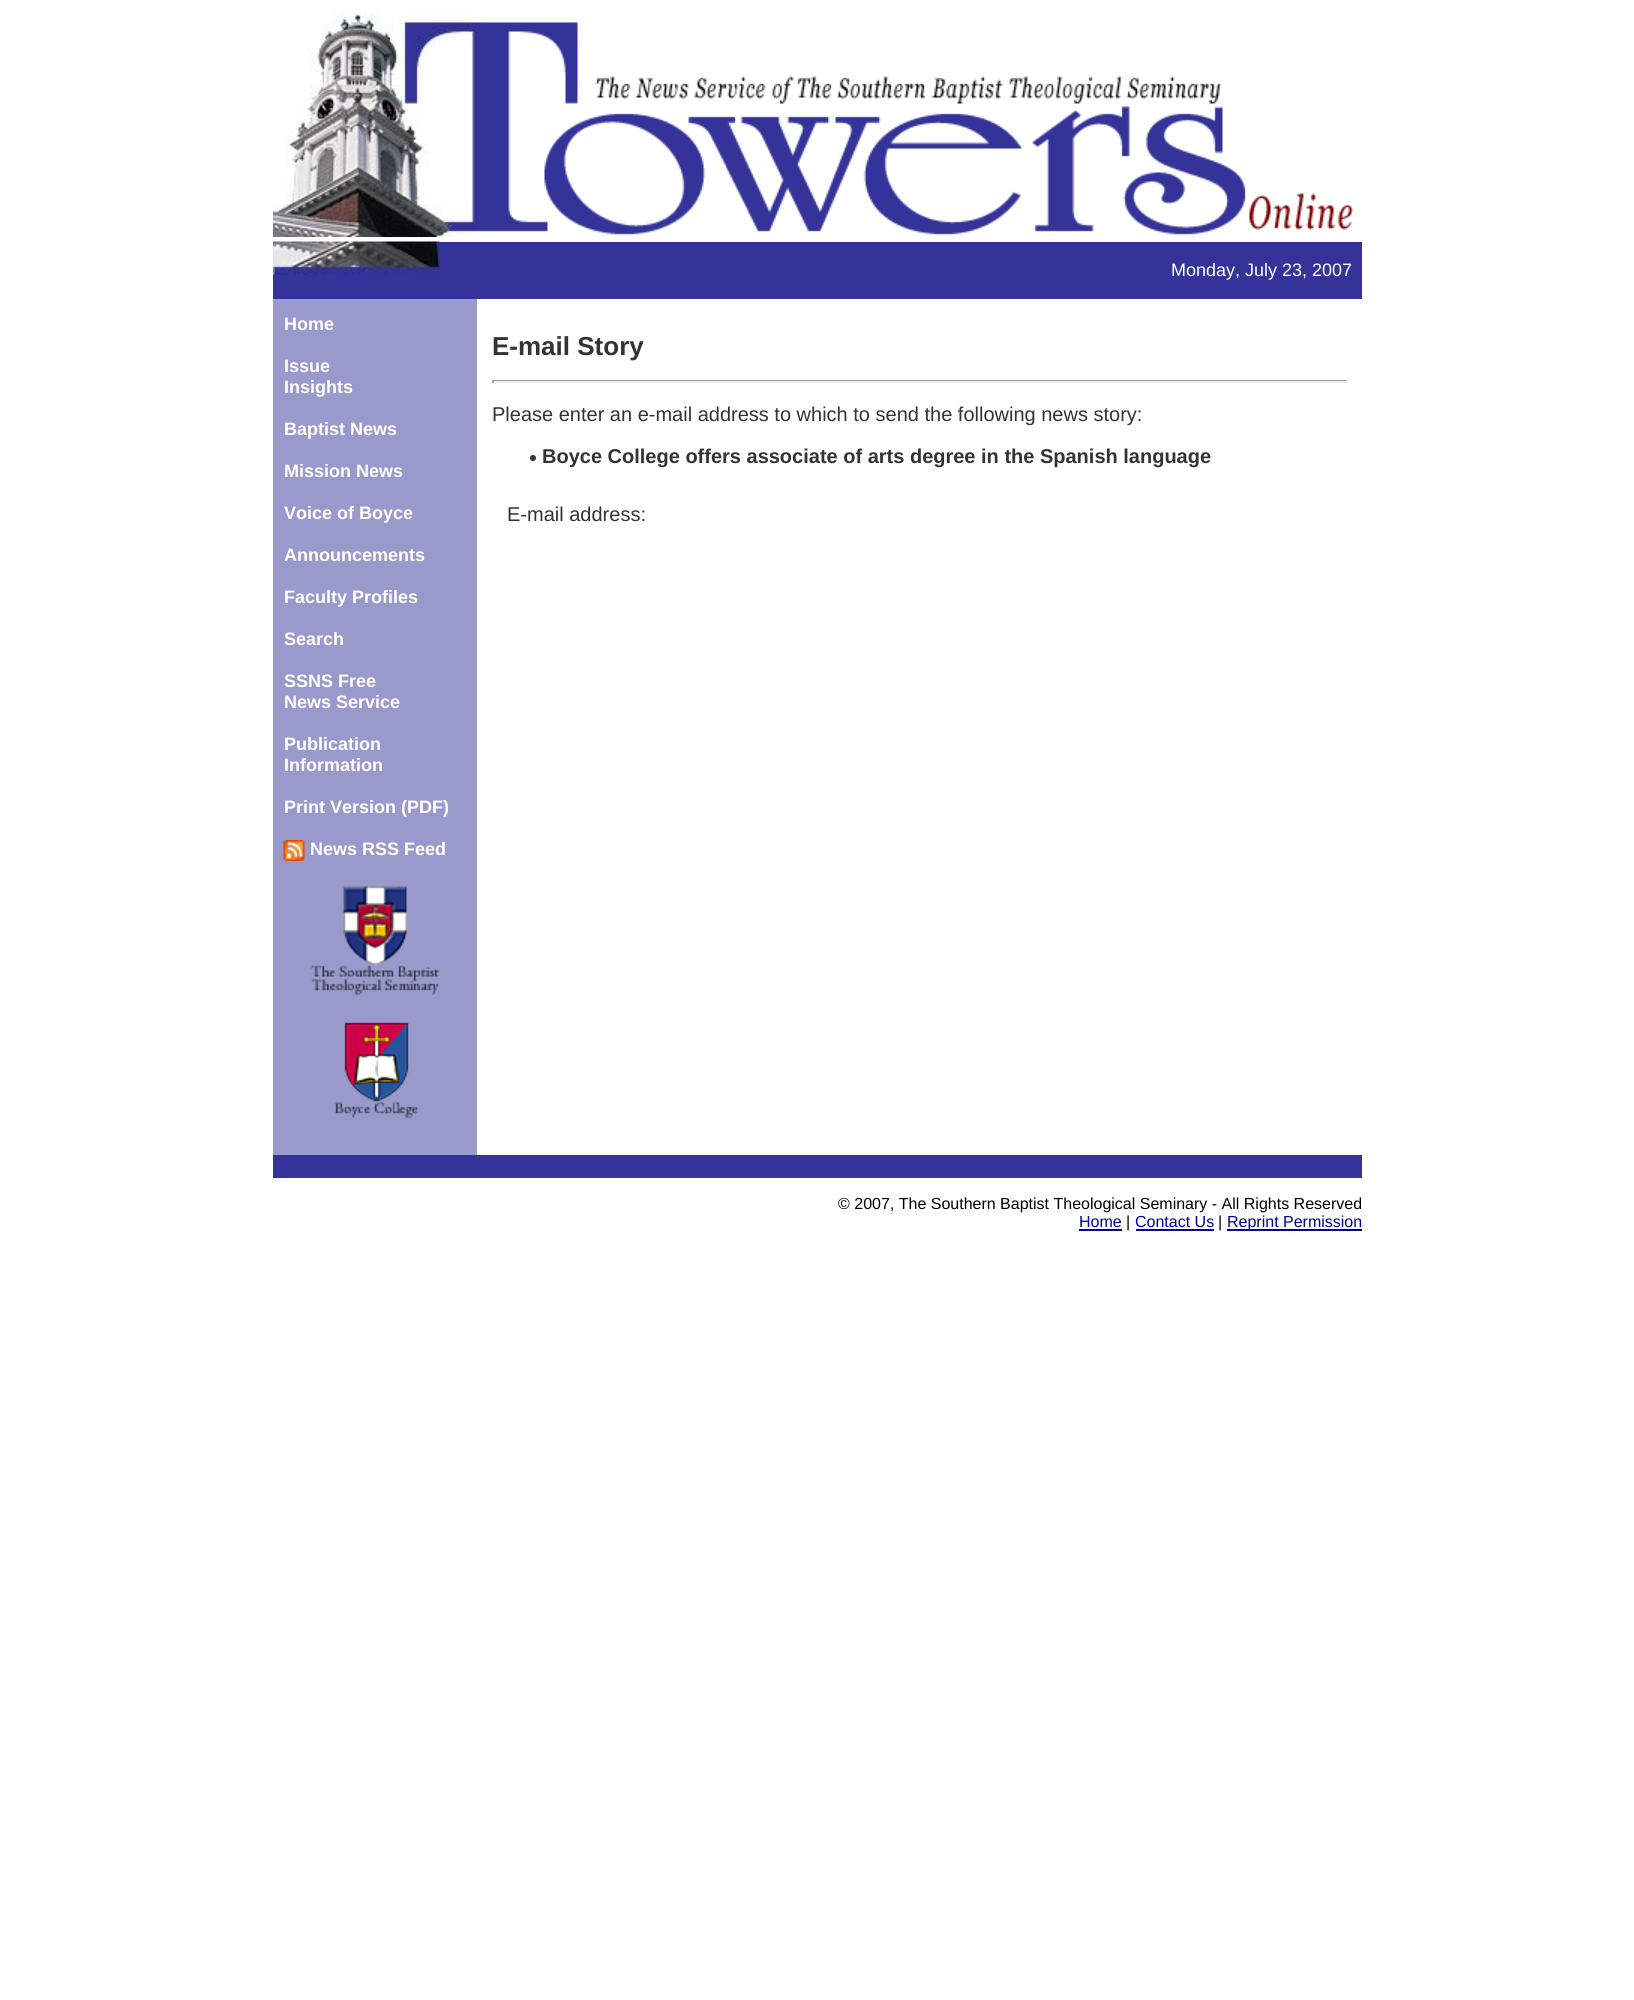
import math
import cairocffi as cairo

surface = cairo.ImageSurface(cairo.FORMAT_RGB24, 1634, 2000)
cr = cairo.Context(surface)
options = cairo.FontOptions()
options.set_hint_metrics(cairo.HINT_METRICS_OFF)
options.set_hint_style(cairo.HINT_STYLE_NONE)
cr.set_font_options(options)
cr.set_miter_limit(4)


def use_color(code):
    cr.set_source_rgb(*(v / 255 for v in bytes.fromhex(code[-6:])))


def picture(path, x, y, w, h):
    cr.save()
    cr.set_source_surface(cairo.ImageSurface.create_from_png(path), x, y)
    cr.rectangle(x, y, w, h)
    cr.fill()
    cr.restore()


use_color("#ffffff")
cr.paint()
picture("img1.png", 273, 12, 204, 225)
picture("img2.png", 477, 22, 877, 213)
use_color("#333399")
cr.rectangle(273, 242, 1089, 57)
cr.fill()
picture("img3.png", 273, 241, 167, 34)
cr.select_font_face("Liberation Sans")
cr.set_font_size(18)
use_color("#ffffff")
cr.move_to(1171, 276)
cr.show_text("Monday, July 23, 2007")
use_color("#9999cc")
cr.rectangle(273, 299, 204, 856)
cr.fill()
cr.select_font_face("Liberation Sans", cairo.FONT_SLANT_NORMAL, cairo.FONT_WEIGHT_BOLD)
use_color("#ffffff")
cr.move_to(284, 330)
cr.show_text("Home")
cr.move_to(284, 372)
cr.show_text("Issue")
cr.move_to(284, 393)
cr.show_text("Insights")
cr.move_to(284, 435)
cr.show_text("Baptist News")
cr.move_to(284, 477)
cr.show_text("Mission News")
cr.move_to(284, 519)
cr.show_text("Voice of Boyce")
cr.move_to(284, 561)
cr.show_text("Announcements")
cr.move_to(284, 603)
cr.show_text("Faculty Profiles")
cr.move_to(284, 645)
cr.show_text("Search")
cr.move_to(284, 687)
cr.show_text("SSNS Free")
cr.move_to(284, 708)
cr.show_text("News Service")
cr.move_to(284, 750)
cr.show_text("Publication")
cr.move_to(284, 771)
cr.show_text("Information")
cr.move_to(284, 813)
cr.show_text("Print Version (PDF)")
picture("img4.png", 283, 840, 22, 21)
cr.move_to(310, 855)
cr.show_text("News RSS Feed")
picture("img5.png", 310, 886, 130, 109)
picture("img6.png", 334, 1022, 85, 96)
cr.set_font_size(26)
use_color("#333333")
cr.move_to(492, 355)
cr.show_text("E-mail Story")
use_color("#9f9f9f")
cr.rectangle(492, 380, 855, 1)
cr.fill()
use_color("#eeeeee")
cr.rectangle(1346, 380, 2, 3)
cr.fill()
cr.rectangle(492, 381, 855, 2)
cr.fill()
use_color("#9f9f9f")
cr.rectangle(492, 380, 2, 3)
cr.fill()
cr.select_font_face("Liberation Sans")
cr.set_font_size(20)
use_color("#333333")
cr.move_to(492, 421)
cr.show_text("Please enter an e-mail address to which to send the following news story:")
cr.new_path()
cr.arc(533, 458, 3, 0, 2 * math.pi)
cr.fill()
cr.select_font_face("Liberation Sans", cairo.FONT_SLANT_NORMAL, cairo.FONT_WEIGHT_BOLD)
cr.move_to(542, 463)
cr.show_text("Boyce College offers associate of arts degree in the Spanish language")
cr.select_font_face("Liberation Sans")
cr.move_to(507, 521)
cr.show_text("E-mail address:")
use_color("#333399")
cr.rectangle(273, 1155, 1089, 23)
cr.fill()
cr.set_font_size(16)
use_color("#000000")
cr.move_to(838, 1209)
cr.show_text("© 2007, The Southern Baptist Theological Seminary - All Rights Reserved")
use_color("#000099")
cr.move_to(1079, 1227)
cr.show_text("Home")
cr.rectangle(1079, 1229, 43, 2)
cr.fill()
use_color("#000000")
cr.move_to(1126, 1227)
cr.show_text("|")
use_color("#000099")
cr.move_to(1135, 1227)
cr.show_text("Contact Us")
cr.rectangle(1136, 1229, 78, 2)
cr.fill()
use_color("#000000")
cr.move_to(1218, 1227)
cr.show_text("|")
use_color("#000099")
cr.rectangle(1227, 1229, 135, 2)
cr.fill()
cr.move_to(1227, 1227)
cr.show_text("Reprint Permission")
surface.write_to_png("result.png")
